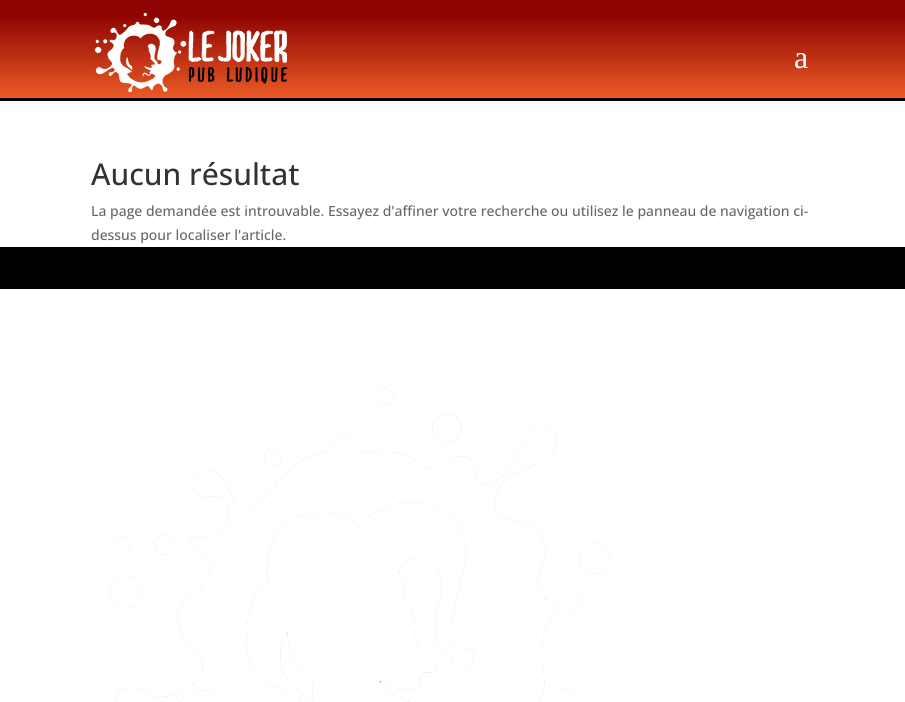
import math
import cairocffi as cairo

surface = cairo.ImageSurface(cairo.FORMAT_RGB24, 905, 702)
cr = cairo.Context(surface)
options = cairo.FontOptions()
options.set_hint_metrics(cairo.HINT_METRICS_OFF)
options.set_hint_style(cairo.HINT_STYLE_NONE)
cr.set_font_options(options)
cr.set_miter_limit(4)


def use_color(code):
    cr.set_source_rgb(*(v / 255 for v in bytes.fromhex(code[-6:])))


def picture(path, x, y, w, h):
    cr.save()
    cr.set_source_surface(cairo.ImageSurface.create_from_png(path), x, y)
    cr.rectangle(x, y, w, h)
    cr.fill()
    cr.restore()


use_color("#000000")
cr.paint()
use_color("#8f0402")
cr.rectangle(0, 0, 905, 10)
cr.fill()
gradient = cairo.LinearGradient(453, 10, 453, 98)
gradient.add_color_stop_rgba(0.06, 0.561, 0.016, 0.008, 1)
gradient.add_color_stop_rgba(1, 0.922, 0.357, 0.149, 1)
cr.set_source(gradient)
cr.rectangle(0, 10, 905, 88)
cr.fill()
picture("img1.png", 95, 13, 192, 79)
cr.select_font_face("Liberation Serif")
cr.set_font_size(32)
use_color("#ffffff")
cr.move_to(794, 68)
cr.show_text("a")
cr.rectangle(0, 101, 905, 146)
cr.fill()
cr.select_font_face("Open Sans Medium")
cr.set_font_size(30)
use_color("#333333")
cr.move_to(91, 185)
cr.show_text("Aucun résultat")
cr.set_font_size(14)
use_color("#666666")
cr.move_to(91, 216)
cr.show_text("La page demandée est introuvable. Essayez d'affiner votre recherche ou utilisez le panneau de navigation ci-")
cr.move_to(91, 240)
cr.show_text("dessus pour localiser l'article.")
use_color("#ffffff")
cr.rectangle(0, 289, 905, 413)
cr.fill()
picture("img2.png", 109, 388, 502, 314)
surface.write_to_png("result.png")
